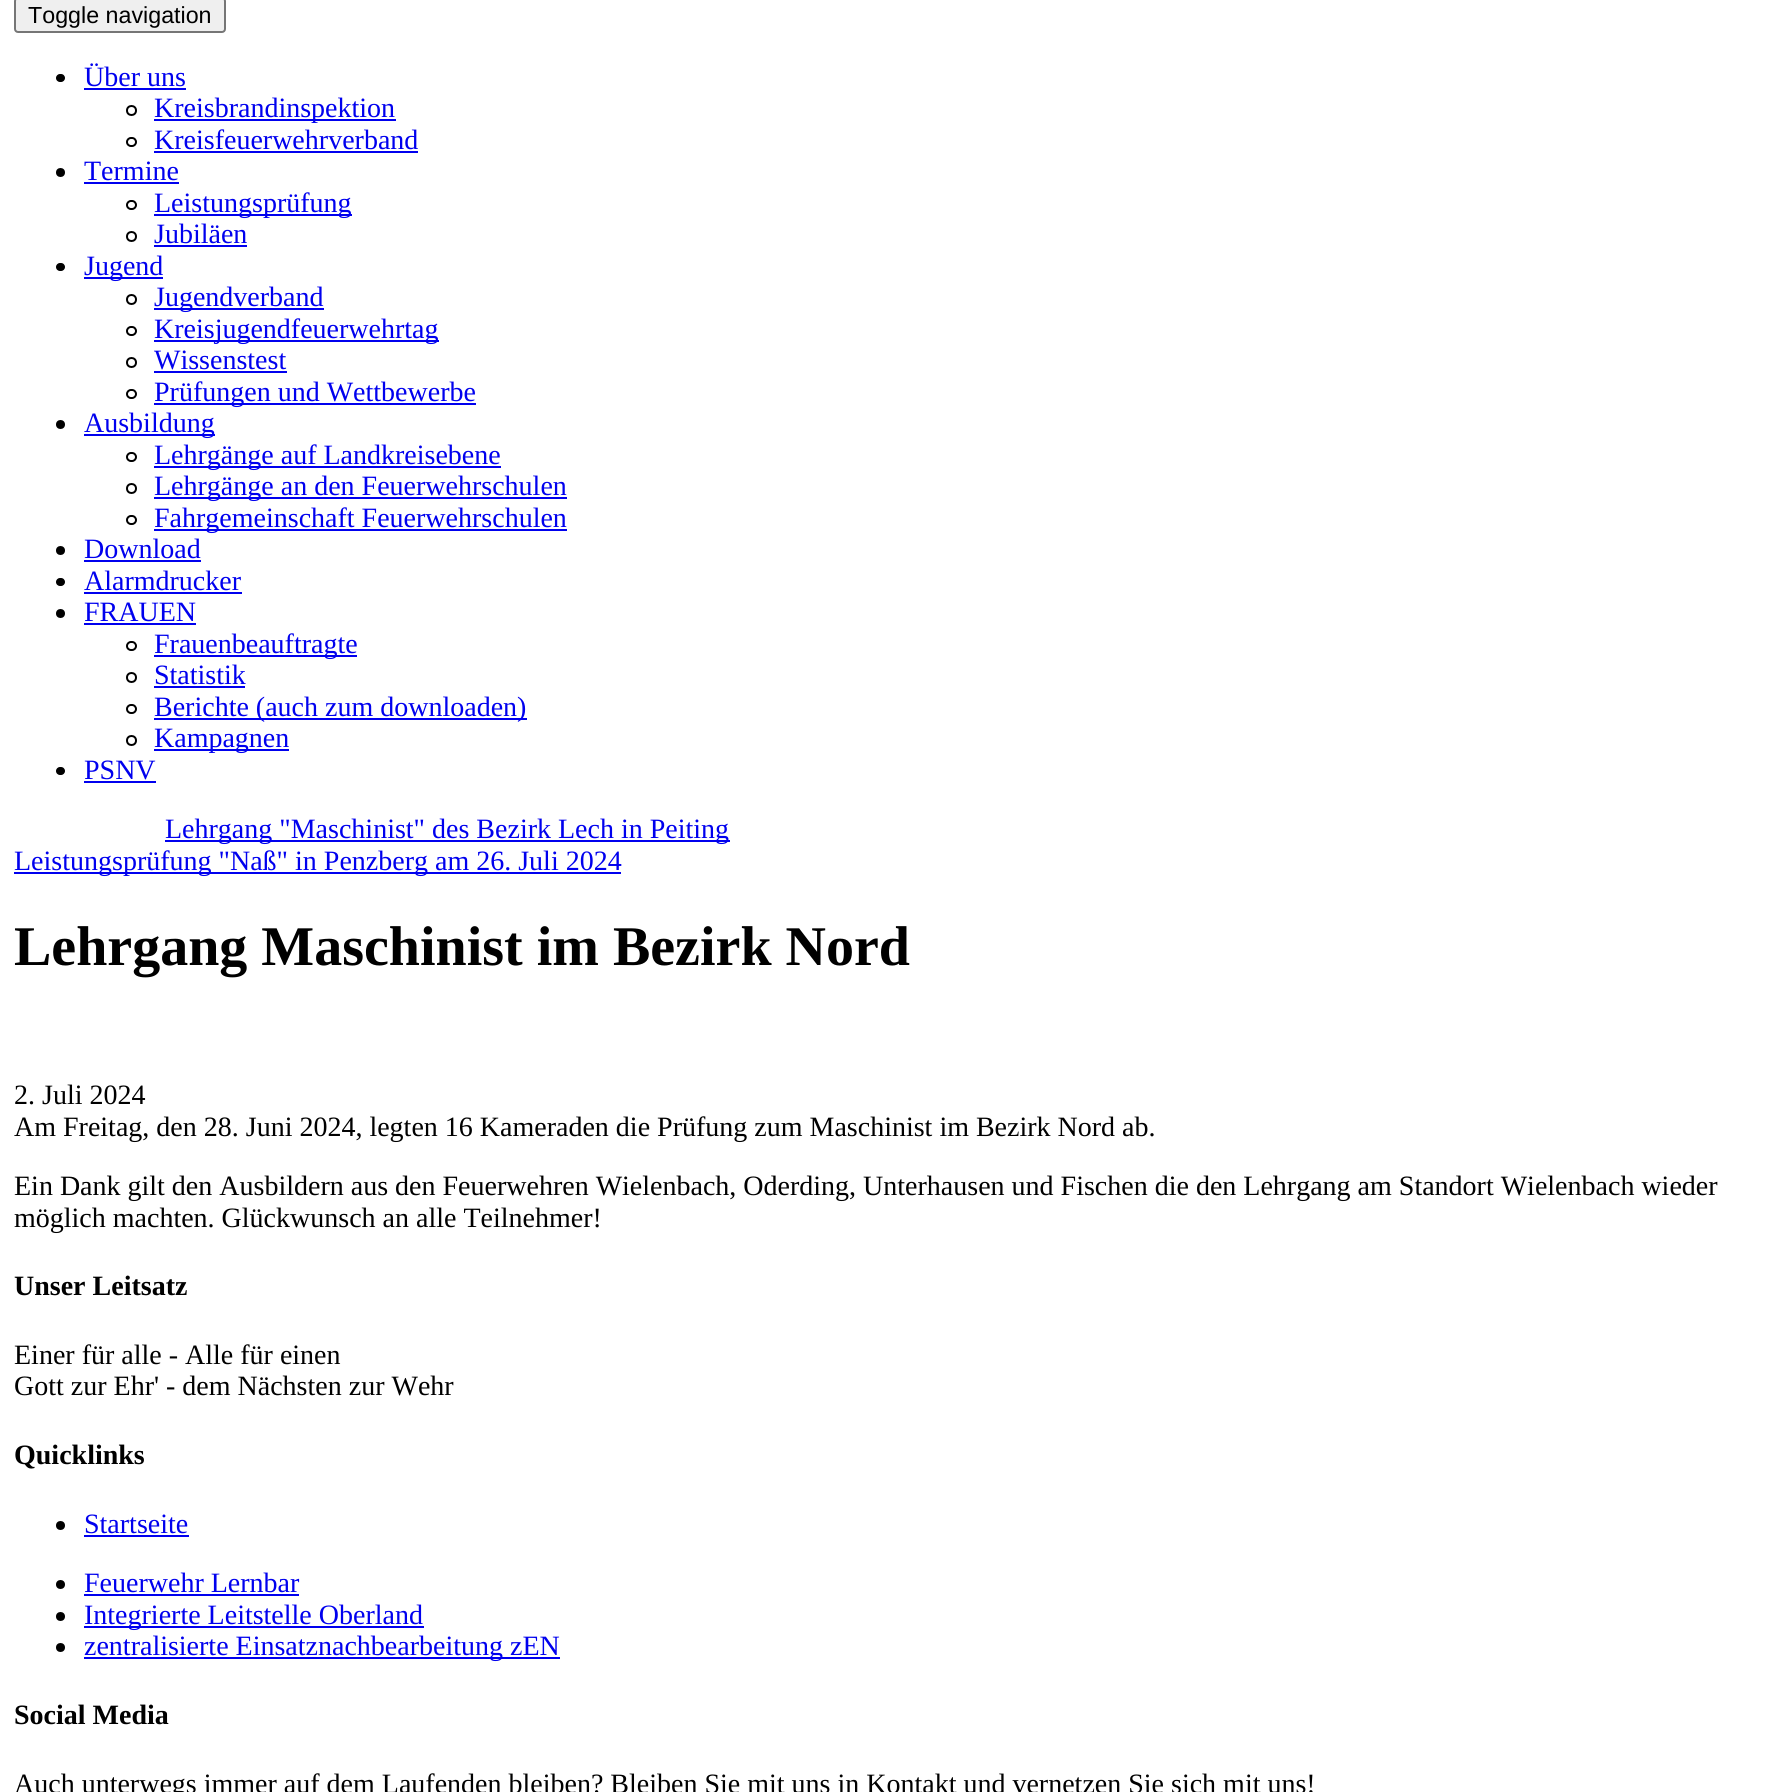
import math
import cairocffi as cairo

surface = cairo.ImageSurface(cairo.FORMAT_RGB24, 1770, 1792)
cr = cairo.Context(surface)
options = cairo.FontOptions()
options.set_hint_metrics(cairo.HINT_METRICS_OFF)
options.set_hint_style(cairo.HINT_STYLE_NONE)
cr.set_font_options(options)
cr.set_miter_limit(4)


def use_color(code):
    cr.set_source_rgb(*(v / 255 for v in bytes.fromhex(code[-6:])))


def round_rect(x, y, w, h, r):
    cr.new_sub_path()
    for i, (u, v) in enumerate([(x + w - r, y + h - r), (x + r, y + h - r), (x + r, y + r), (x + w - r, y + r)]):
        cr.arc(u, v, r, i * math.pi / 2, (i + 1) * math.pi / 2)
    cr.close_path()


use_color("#ffffff")
cr.paint()
use_color("#efefef")
round_rect(15, -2, 210, 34, 3)
cr.fill_preserve()
use_color("#767676")
cr.stroke()
cr.select_font_face("Liberation Sans")
cr.set_font_size(23.25)
use_color("#000000")
cr.move_to(28, 23)
cr.show_text("Toggle navigation")
round_rect(56, 74, 9, 8, 4)
cr.fill()
cr.select_font_face("Liberation Serif")
cr.set_font_size(28)
use_color("#0000ee")
cr.move_to(84, 86)
cr.show_text("Über uns")
cr.rectangle(84, 88, 102, 2)
cr.fill()
cr.arc(131.5, 110.5, 4.5, 0, 2 * math.pi)
use_color("#000000")
cr.stroke()
use_color("#0000ee")
cr.rectangle(154, 119, 242, 2)
cr.fill()
cr.move_to(154, 117)
cr.show_text("Kreisbrandinspektion")
round_rect(127, 138, 9, 8, 4)
use_color("#000000")
cr.stroke()
use_color("#0000ee")
cr.move_to(154, 149)
cr.show_text("Kreisfeuerwehrverband")
cr.rectangle(154, 151, 264, 2)
cr.fill()
use_color("#000000")
cr.arc(60.5, 172.5, 4.5, 0, 2 * math.pi)
cr.fill()
use_color("#0000ee")
cr.move_to(84, 180)
cr.show_text("Termine")
cr.rectangle(84, 182, 95, 2)
cr.fill()
round_rect(127, 201, 9, 8, 4)
use_color("#000000")
cr.stroke()
use_color("#0000ee")
cr.rectangle(154, 214, 198, 2)
cr.fill()
cr.move_to(154, 212)
cr.show_text("Leistungsprüfung")
cr.new_path()
cr.arc(131.5, 236.5, 4.5, 0, 2 * math.pi)
use_color("#000000")
cr.stroke()
use_color("#0000ee")
cr.move_to(154, 243)
cr.show_text("Jubiläen")
cr.rectangle(154, 245, 93, 2)
cr.fill()
use_color("#000000")
round_rect(56, 263, 9, 8, 4)
cr.fill()
use_color("#0000ee")
cr.rectangle(84, 277, 79, 2)
cr.fill()
cr.move_to(84, 275)
cr.show_text("Jugend")
cr.new_path()
cr.arc(131.5, 299.5, 4.5, 0, 2 * math.pi)
use_color("#000000")
cr.stroke()
use_color("#0000ee")
cr.rectangle(154, 308, 170, 2)
cr.fill()
cr.move_to(154, 306)
cr.show_text("Jugendverband")
round_rect(127, 327, 9, 8, 4)
use_color("#000000")
cr.stroke()
use_color("#0000ee")
cr.rectangle(154, 340, 285, 2)
cr.fill()
cr.move_to(154, 338)
cr.show_text("Kreisjugendfeuerwehrtag")
cr.new_path()
cr.arc(131.5, 362.5, 4.5, 0, 2 * math.pi)
use_color("#000000")
cr.stroke()
use_color("#0000ee")
cr.move_to(154, 369)
cr.show_text("Wissenstest")
cr.rectangle(154, 371, 133, 2)
cr.fill()
round_rect(127, 390, 9, 8, 4)
use_color("#000000")
cr.stroke()
use_color("#0000ee")
cr.rectangle(154, 403, 322, 2)
cr.fill()
cr.move_to(154, 401)
cr.show_text("Prüfungen und Wettbewerbe")
use_color("#000000")
cr.new_path()
cr.arc(60.5, 424.5, 4.5, 0, 2 * math.pi)
cr.fill()
use_color("#0000ee")
cr.rectangle(84, 434, 131, 2)
cr.fill()
cr.move_to(84, 432)
cr.show_text("Ausbildung")
round_rect(127, 453, 9, 8, 4)
use_color("#000000")
cr.stroke()
use_color("#0000ee")
cr.rectangle(154, 466, 347, 2)
cr.fill()
cr.move_to(154, 464)
cr.show_text("Lehrgänge auf Landkreisebene")
cr.new_path()
cr.arc(131.5, 488.5, 4.5, 0, 2 * math.pi)
use_color("#000000")
cr.stroke()
use_color("#0000ee")
cr.rectangle(154, 497, 413, 2)
cr.fill()
cr.move_to(154, 495)
cr.show_text("Lehrgänge an den Feuerwehrschulen")
round_rect(127, 516, 9, 8, 4)
use_color("#000000")
cr.stroke()
use_color("#0000ee")
cr.rectangle(154, 529, 413, 2)
cr.fill()
cr.move_to(154, 527)
cr.show_text("Fahrgemeinschaft Feuerwehrschulen")
use_color("#000000")
cr.new_path()
cr.arc(60.5, 550.5, 4.5, 0, 2 * math.pi)
cr.fill()
use_color("#0000ee")
cr.move_to(84, 558)
cr.show_text("Download")
cr.rectangle(84, 560, 117, 2)
cr.fill()
use_color("#000000")
round_rect(56, 578, 9, 8, 4)
cr.fill()
use_color("#0000ee")
cr.move_to(84, 590)
cr.show_text("Alarmdrucker")
cr.rectangle(84, 592, 158, 2)
cr.fill()
use_color("#000000")
cr.arc(60.5, 613.5, 4.5, 0, 2 * math.pi)
cr.fill()
use_color("#0000ee")
cr.move_to(84, 621)
cr.show_text("FRAUEN")
cr.rectangle(84, 623, 112, 2)
cr.fill()
round_rect(127, 642, 9, 8, 4)
use_color("#000000")
cr.stroke()
use_color("#0000ee")
cr.rectangle(154, 655, 203, 2)
cr.fill()
cr.move_to(154, 653)
cr.show_text("Frauenbeauftragte")
cr.new_path()
cr.arc(131.5, 677.5, 4.5, 0, 2 * math.pi)
use_color("#000000")
cr.stroke()
use_color("#0000ee")
cr.move_to(154, 684)
cr.show_text("Statistik")
cr.rectangle(154, 686, 91, 2)
cr.fill()
round_rect(127, 705, 9, 8, 4)
use_color("#000000")
cr.stroke()
use_color("#0000ee")
cr.rectangle(154, 718, 373, 2)
cr.fill()
cr.move_to(154, 716)
cr.show_text("Berichte (auch zum downloaden)")
cr.new_path()
cr.arc(131.5, 740.5, 4.5, 0, 2 * math.pi)
use_color("#000000")
cr.stroke()
use_color("#0000ee")
cr.rectangle(154, 749, 135, 2)
cr.fill()
cr.move_to(154, 747)
cr.show_text("Kampagnen")
use_color("#000000")
round_rect(56, 767, 9, 8, 4)
cr.fill()
use_color("#0000ee")
cr.move_to(84, 779)
cr.show_text("PSNV")
cr.rectangle(84, 781, 72, 2)
cr.fill()
cr.rectangle(165, 840, 565, 2)
cr.fill()
cr.move_to(165, 838)
cr.show_text("Lehrgang \"Maschinist\" des Bezirk Lech in Peiting")
cr.rectangle(14, 872, 607, 2)
cr.fill()
cr.move_to(14, 870)
cr.show_text("Leistungsprüfung \"Naß\" in Penzberg am 26. Juli 2024")
cr.select_font_face("Liberation Serif", cairo.FONT_SLANT_NORMAL, cairo.FONT_WEIGHT_BOLD)
cr.set_font_size(56)
use_color("#000000")
cr.move_to(14, 965)
cr.show_text("Lehrgang Maschinist im Bezirk Nord")
cr.select_font_face("Liberation Serif")
cr.set_font_size(28)
cr.move_to(14, 1104)
cr.show_text("2. Juli 2024")
cr.move_to(14, 1136)
cr.show_text("Am Freitag, den 28. Juni 2024, legten 16 Kameraden die Prüfung zum Maschinist im Bezirk Nord ab.")
cr.move_to(14, 1195)
cr.show_text("Ein Dank gilt den Ausbildern aus den Feuerwehren Wielenbach, Oderding, Unterhausen und Fischen die den Lehrgang am Standort Wielenbach wieder")
cr.move_to(14, 1227)
cr.show_text("möglich machten. Glückwunsch an alle Teilnehmer!")
cr.select_font_face("Liberation Serif", cairo.FONT_SLANT_NORMAL, cairo.FONT_WEIGHT_BOLD)
cr.move_to(14, 1295)
cr.show_text("Unser Leitsatz")
cr.select_font_face("Liberation Serif")
cr.move_to(14, 1364)
cr.show_text("Einer für alle - Alle für einen")
cr.move_to(14, 1395)
cr.show_text("Gott zur Ehr' - dem Nächsten zur Wehr")
cr.select_font_face("Liberation Serif", cairo.FONT_SLANT_NORMAL, cairo.FONT_WEIGHT_BOLD)
cr.move_to(14, 1464)
cr.show_text("Quicklinks")
cr.new_path()
cr.arc(60.5, 1525.5, 4.5, 0, 2 * math.pi)
cr.fill()
cr.select_font_face("Liberation Serif")
use_color("#0000ee")
cr.move_to(84, 1533)
cr.show_text("Startseite")
cr.rectangle(84, 1535, 105, 2)
cr.fill()
use_color("#000000")
cr.arc(60.5, 1584.5, 4.5, 0, 2 * math.pi)
cr.fill()
use_color("#0000ee")
cr.move_to(84, 1592)
cr.show_text("Feuerwehr Lernbar")
cr.rectangle(84, 1594, 215, 2)
cr.fill()
use_color("#000000")
cr.arc(60.5, 1616.5, 4.5, 0, 2 * math.pi)
cr.fill()
use_color("#0000ee")
cr.rectangle(84, 1626, 340, 2)
cr.fill()
cr.move_to(84, 1624)
cr.show_text("Integrierte Leitstelle Oberland")
use_color("#000000")
cr.new_path()
cr.arc(60.5, 1647.5, 4.5, 0, 2 * math.pi)
cr.fill()
use_color("#0000ee")
cr.rectangle(84, 1657, 476, 2)
cr.fill()
cr.move_to(84, 1655)
cr.show_text("zentralisierte Einsatznachbearbeitung zEN")
cr.select_font_face("Liberation Serif", cairo.FONT_SLANT_NORMAL, cairo.FONT_WEIGHT_BOLD)
use_color("#000000")
cr.move_to(14, 1724)
cr.show_text("Social Media")
cr.select_font_face("Liberation Serif")
cr.move_to(14, 1793)
cr.show_text("Auch unterwegs immer auf dem Laufenden bleiben? Bleiben Sie mit uns in Kontakt und vernetzen Sie sich mit uns!")
surface.write_to_png("result.png")
